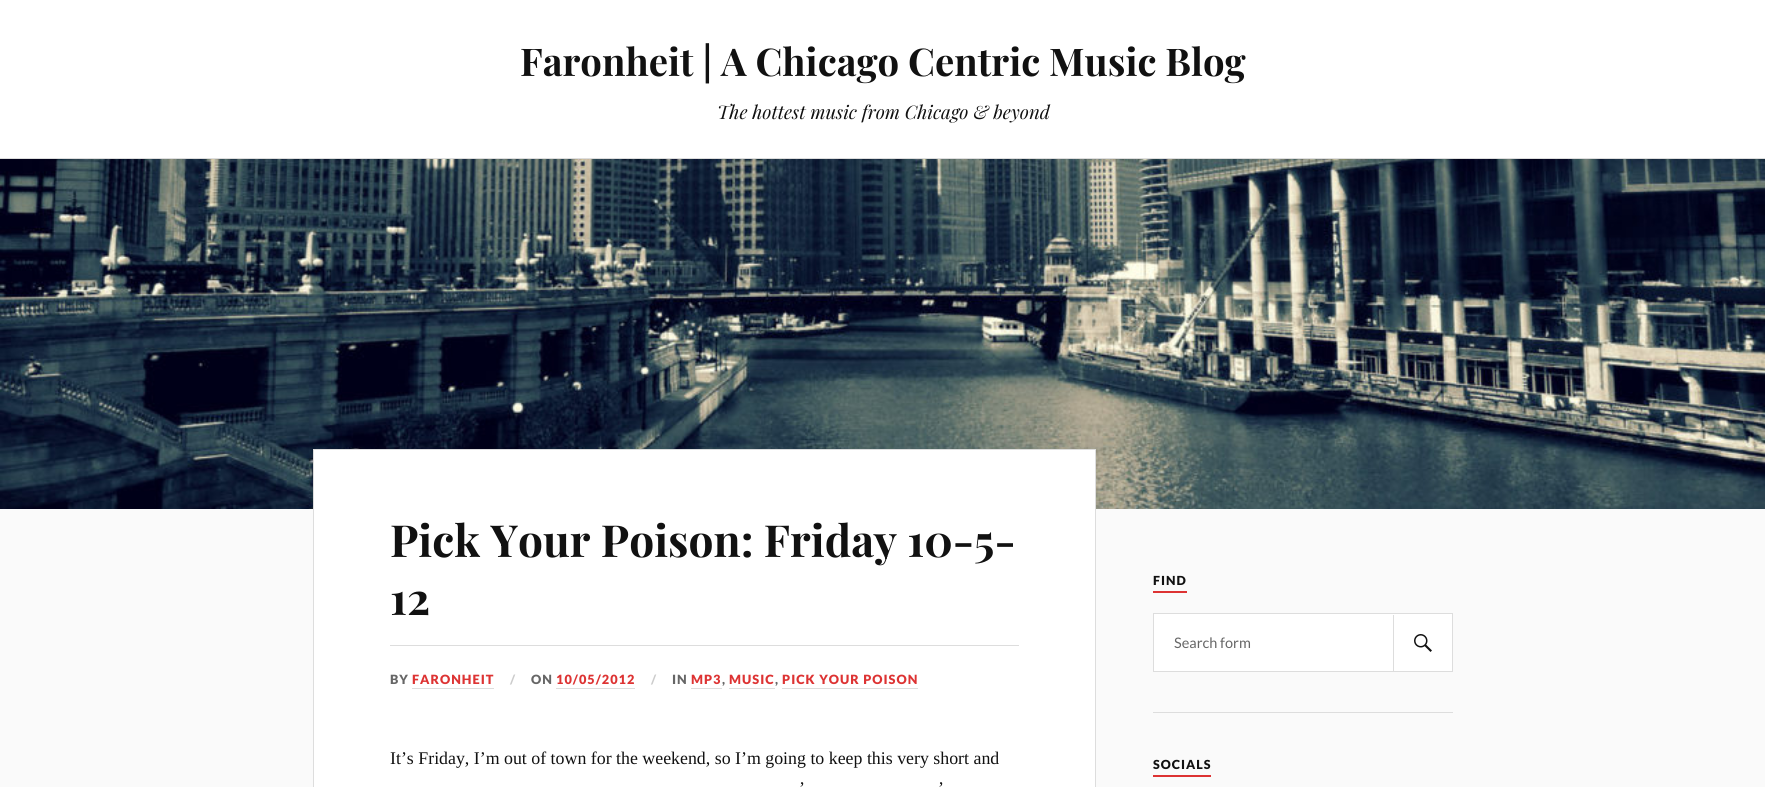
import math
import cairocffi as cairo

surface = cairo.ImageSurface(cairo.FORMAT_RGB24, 1765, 787)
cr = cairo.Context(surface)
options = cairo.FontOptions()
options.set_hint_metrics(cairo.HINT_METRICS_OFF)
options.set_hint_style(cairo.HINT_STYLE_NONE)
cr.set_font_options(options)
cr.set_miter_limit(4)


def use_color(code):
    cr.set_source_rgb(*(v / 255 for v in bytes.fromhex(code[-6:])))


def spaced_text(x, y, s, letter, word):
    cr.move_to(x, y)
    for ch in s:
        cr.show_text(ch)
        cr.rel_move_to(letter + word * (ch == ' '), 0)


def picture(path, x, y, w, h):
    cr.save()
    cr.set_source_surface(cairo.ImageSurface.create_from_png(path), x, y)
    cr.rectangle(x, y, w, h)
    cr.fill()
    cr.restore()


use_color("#fafafa")
cr.paint()
use_color("#ffffff")
cr.rectangle(0, 0, 1765, 158)
cr.fill()
cr.select_font_face("Playfair Display", cairo.FONT_SLANT_NORMAL, cairo.FONT_WEIGHT_BOLD)
cr.set_font_size(38.25)
use_color("#111111")
cr.move_to(520, 76)
cr.show_text("Faronheit | A Chicago Centric Music Blog")
cr.select_font_face("Playfair Display", cairo.FONT_SLANT_ITALIC)
cr.set_font_size(18.75)
cr.move_to(717, 119)
cr.show_text("The hottest music from Chicago & beyond")
use_color("#dddddd")
cr.rectangle(0, 158, 1765, 1)
cr.fill()
picture("img1.png", 0, 159, 1765, 350)
use_color("#ffffff")
cr.rectangle(313.5, 449.5, 782, 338)
cr.fill_preserve()
use_color("#dddddd")
cr.set_line_width(1)
cr.stroke()
cr.select_font_face("Playfair Display", cairo.FONT_SLANT_NORMAL, cairo.FONT_WEIGHT_BOLD)
cr.set_font_size(44.25)
use_color("#111111")
cr.move_to(390, 557)
cr.show_text("Pick Your Poison: Friday 10-5-")
cr.move_to(390, 615)
cr.show_text("12")
use_color("#dddddd")
cr.rectangle(390, 645, 629, 1)
cr.fill()
cr.select_font_face("Lato Black")
cr.set_font_size(12.75)
use_color("#666666")
spaced_text(390, 684, "BY", 1, 0)
use_color("#dd3333")
spaced_text(412, 684, "FARONHEIT", 1, 0)
use_color("#dddddd")
cr.rectangle(412, 688, 82, 1)
cr.fill()
use_color("#cccccc")
spaced_text(510, 684, "/", 1, 0)
use_color("#666666")
spaced_text(531, 684, "ON", 1, 0)
use_color("#dd3333")
spaced_text(556, 684, "10/05/2012", 1, 0)
use_color("#dddddd")
cr.rectangle(556, 688, 79, 1)
cr.fill()
use_color("#cccccc")
spaced_text(651, 684, "/", 1, 0)
use_color("#666666")
spaced_text(672, 684, "IN", 1, 0)
use_color("#dd3333")
spaced_text(691, 684, "MP3", 1, 0)
use_color("#dddddd")
cr.rectangle(691, 688, 31, 1)
cr.fill()
use_color("#666666")
spaced_text(722, 684, ",", 1, 0)
use_color("#dd3333")
spaced_text(729, 684, "MUSIC", 1, 0)
use_color("#dddddd")
cr.rectangle(729, 688, 46, 1)
cr.fill()
use_color("#666666")
spaced_text(775, 684, ",", 1, 0)
use_color("#dd3333")
spaced_text(782, 684, "PICK YOUR POISON", 1, 0)
use_color("#dddddd")
cr.rectangle(782, 688, 136, 1)
cr.fill()
cr.select_font_face("Liberation Serif")
cr.set_font_size(17.85)
use_color("#111111")
cr.move_to(390, 764)
cr.show_text("It’s Friday, I’m out of town for the weekend, so I’m going to keep this very short and")
cr.move_to(799, 794)
cr.show_text("’")
cr.move_to(938, 794)
cr.show_text("’")
use_color("#dd3333")
cr.rectangle(1153, 591, 34, 2)
cr.fill()
cr.select_font_face("Lato Black")
cr.set_font_size(12.5)
use_color("#111111")
spaced_text(1153, 585, "FIND", 1, 0)
use_color("#ffffff")
cr.rectangle(1153.5, 613.5, 299, 58)
cr.fill_preserve()
use_color("#dddddd")
cr.stroke()
cr.select_font_face("Lato")
cr.set_font_size(14.5)
use_color("#666666")
cr.move_to(1174, 648)
cr.show_text("Search form")
use_color("#dddddd")
cr.rectangle(1393, 615, 1, 56)
cr.fill()
picture("img2.png", 1414, 634, 18, 18)
cr.rectangle(1153, 712, 300, 1)
cr.fill()
use_color("#dd3333")
cr.rectangle(1153, 775, 58, 2)
cr.fill()
cr.select_font_face("Lato Black")
cr.set_font_size(12.5)
use_color("#111111")
spaced_text(1153, 769, "SOCIALS", 1, 0)
surface.write_to_png("result.png")
